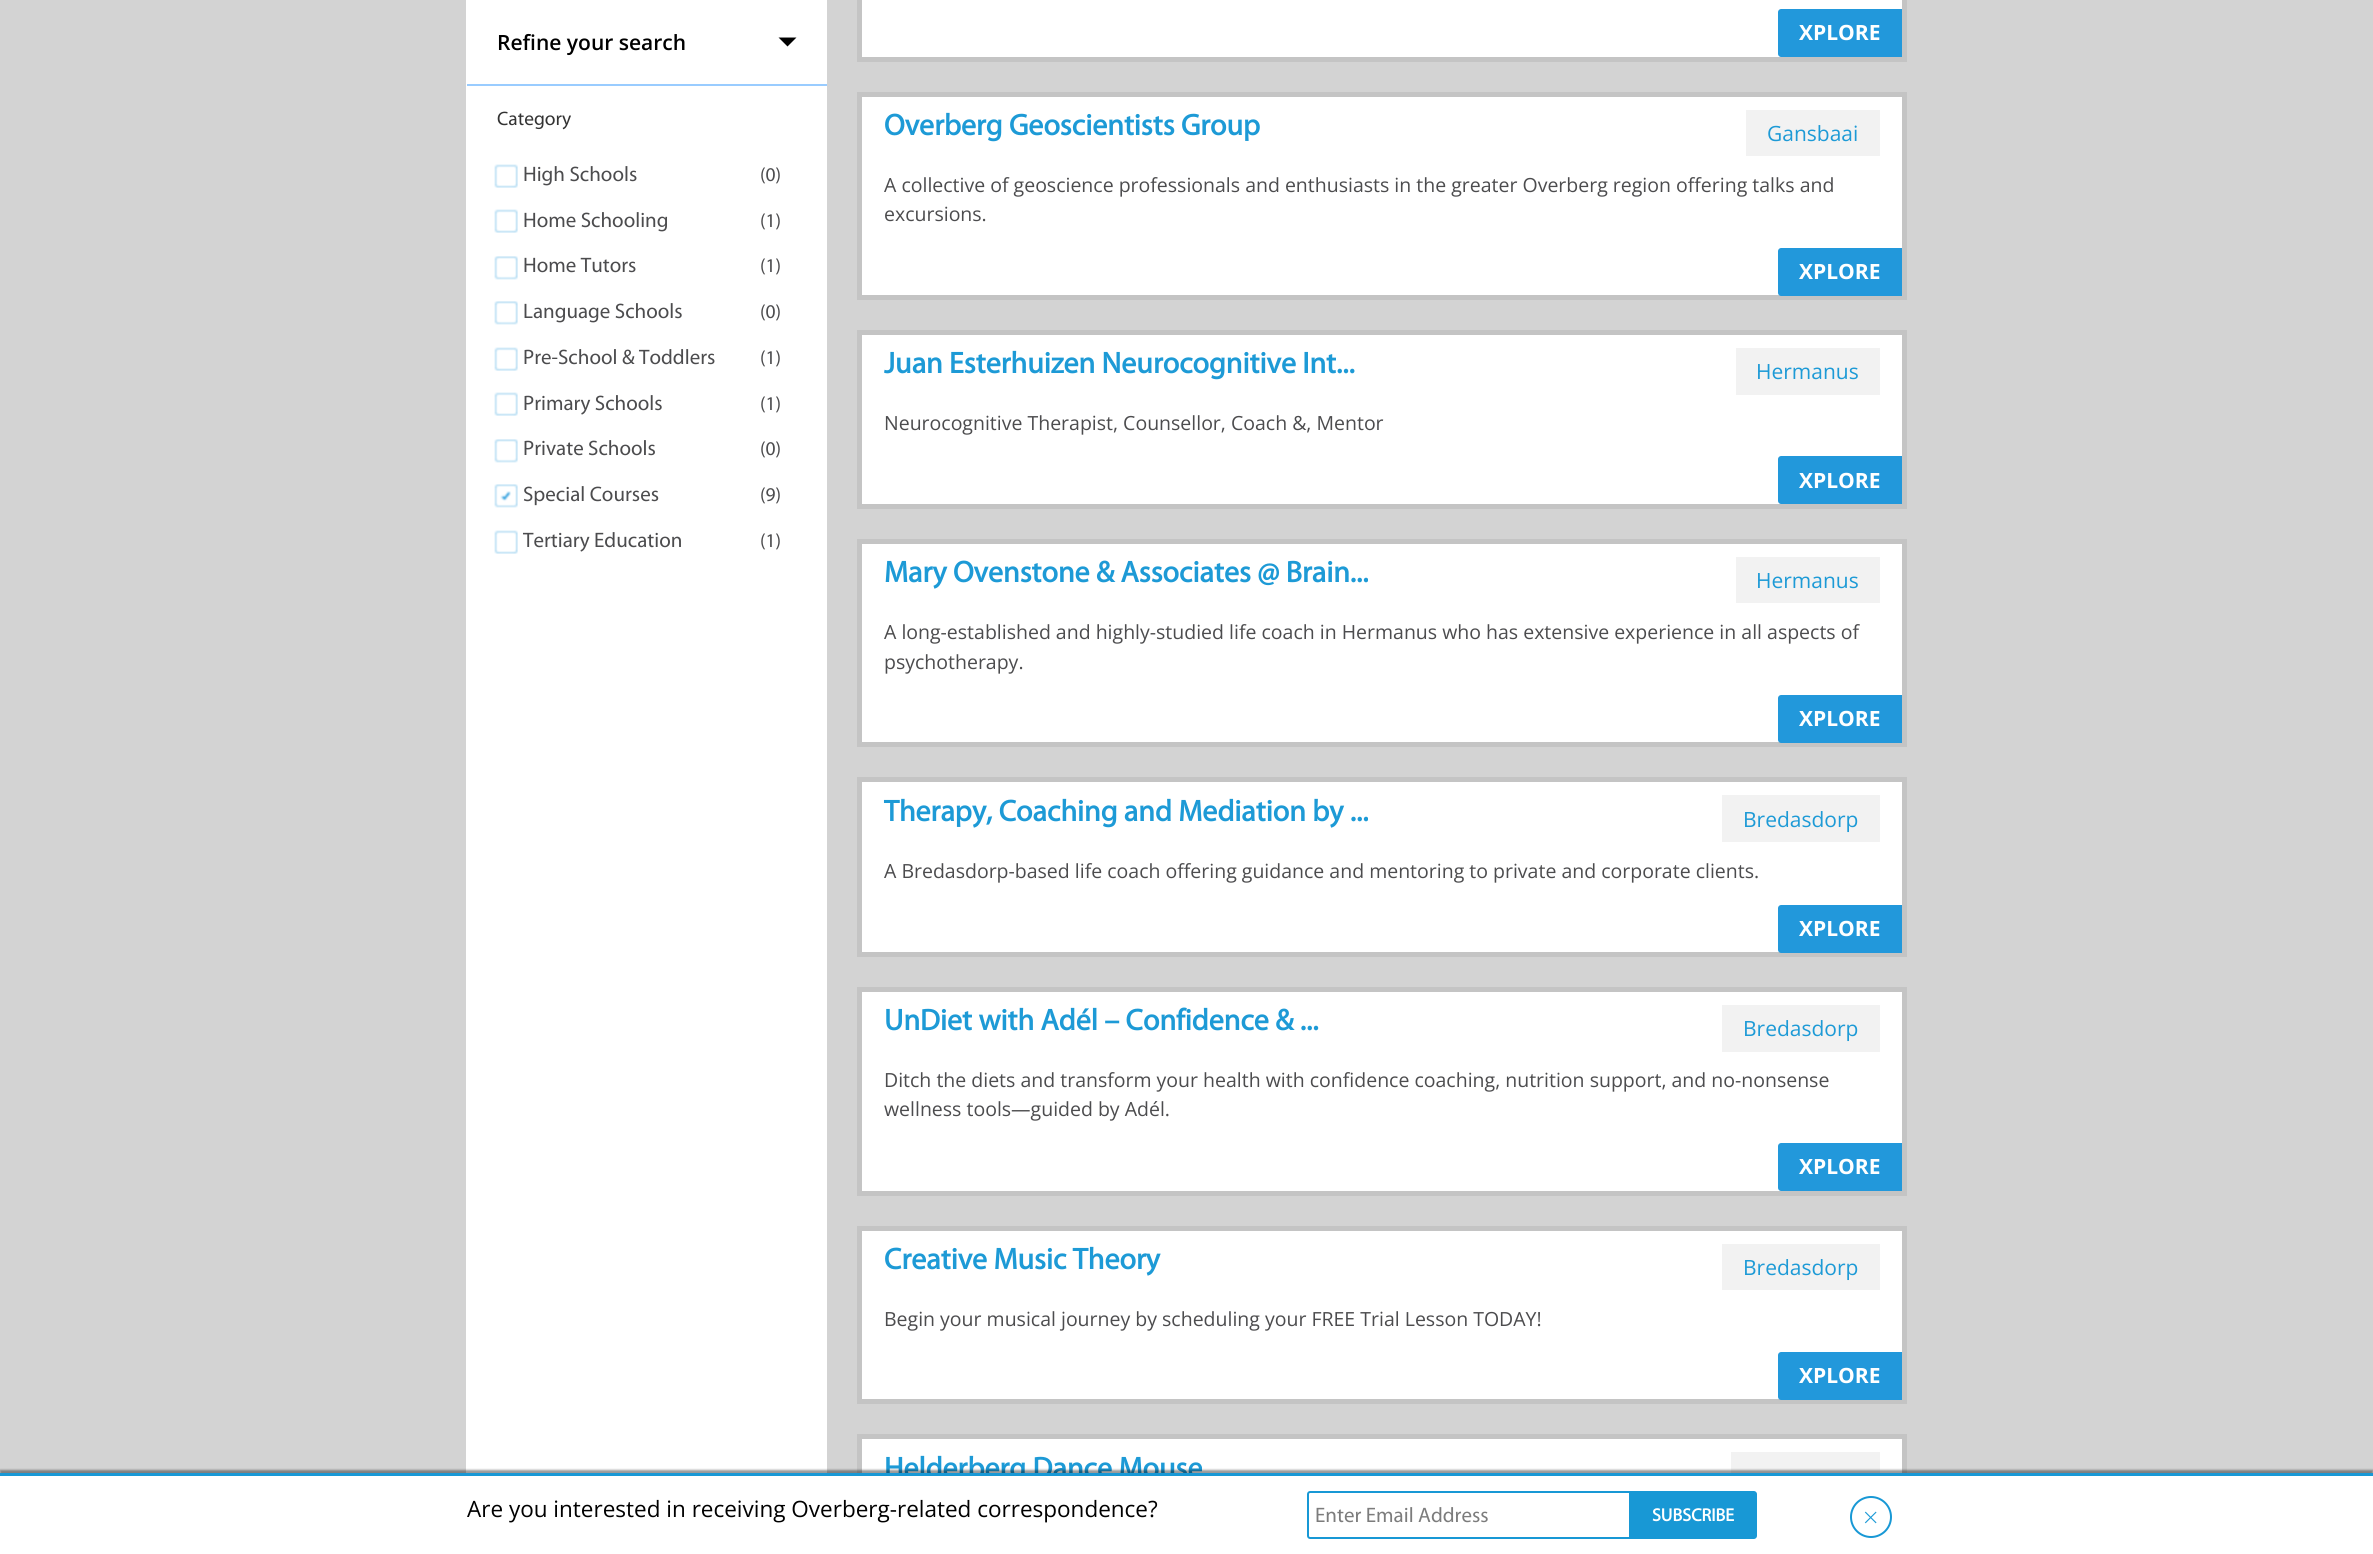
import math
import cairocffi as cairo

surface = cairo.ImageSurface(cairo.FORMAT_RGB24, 2373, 1554)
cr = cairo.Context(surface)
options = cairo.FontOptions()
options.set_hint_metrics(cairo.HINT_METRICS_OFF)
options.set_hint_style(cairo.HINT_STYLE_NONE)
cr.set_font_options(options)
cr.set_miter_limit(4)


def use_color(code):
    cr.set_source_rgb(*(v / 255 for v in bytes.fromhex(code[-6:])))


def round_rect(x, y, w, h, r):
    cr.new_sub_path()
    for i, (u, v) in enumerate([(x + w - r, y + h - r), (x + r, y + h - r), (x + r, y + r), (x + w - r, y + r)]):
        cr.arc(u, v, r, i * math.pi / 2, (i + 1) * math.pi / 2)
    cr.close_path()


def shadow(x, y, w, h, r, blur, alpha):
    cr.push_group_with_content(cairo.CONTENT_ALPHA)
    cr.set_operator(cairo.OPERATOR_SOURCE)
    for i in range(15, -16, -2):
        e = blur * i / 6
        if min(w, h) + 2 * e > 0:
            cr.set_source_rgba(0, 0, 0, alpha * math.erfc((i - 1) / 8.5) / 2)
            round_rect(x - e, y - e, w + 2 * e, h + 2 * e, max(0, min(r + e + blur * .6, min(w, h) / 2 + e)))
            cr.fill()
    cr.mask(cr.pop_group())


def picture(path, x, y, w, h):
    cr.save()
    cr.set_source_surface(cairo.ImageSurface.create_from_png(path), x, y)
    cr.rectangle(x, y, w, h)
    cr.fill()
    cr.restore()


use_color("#d3d3d3")
cr.paint()
use_color("#ffffff")
cr.rectangle(466, 0, 361, 1473)
cr.fill()
cr.select_font_face("Open Sans SemiBold")
cr.set_font_size(21)
use_color("#000000")
cr.move_to(497, 50)
cr.show_text("Refine your search")
cr.new_path()
cr.move_to(778.5, 37.5)
cr.line_to(796.5, 37.5)
cr.line_to(787.5, 46.5)
cr.close_path()
cr.fill()
use_color("#99ccff")
cr.rectangle(467, 84, 360, 2)
cr.fill()
cr.select_font_face("Myriad")
cr.set_font_size(19.5)
use_color("#333333")
cr.move_to(497, 125)
cr.show_text("Category")
picture("img1.png", 494, 164, 24, 24)
cr.set_font_size(21)
use_color("#4c4c4e")
cr.move_to(523, 181)
cr.show_text("High Schools")
cr.set_font_size(19.5)
cr.move_to(760, 181)
cr.show_text("(0)")
picture("img1.png", 494, 209, 24, 24)
cr.set_font_size(21)
cr.move_to(523, 227)
cr.show_text("Home Schooling")
cr.set_font_size(19.5)
cr.move_to(760, 227)
cr.show_text("(1)")
picture("img2.png", 494, 256, 24, 24)
cr.set_font_size(21)
cr.move_to(523, 272)
cr.show_text("Home Tutors")
cr.set_font_size(19.5)
cr.move_to(760, 272)
cr.show_text("(1)")
picture("img2.png", 494, 301, 24, 24)
cr.set_font_size(21)
cr.move_to(523, 318)
cr.show_text("Language Schools")
cr.set_font_size(19.5)
cr.move_to(760, 318)
cr.show_text("(0)")
picture("img1.png", 494, 347, 24, 24)
cr.set_font_size(21)
cr.move_to(523, 364)
cr.show_text("Pre-School & Toddlers")
cr.set_font_size(19.5)
cr.move_to(760, 364)
cr.show_text("(1)")
picture("img1.png", 494, 392, 24, 24)
cr.set_font_size(21)
cr.move_to(523, 410)
cr.show_text("Primary Schools")
cr.set_font_size(19.5)
cr.move_to(760, 410)
cr.show_text("(1)")
picture("img2.png", 494, 439, 24, 24)
cr.set_font_size(21)
cr.move_to(523, 455)
cr.show_text("Private Schools")
cr.set_font_size(19.5)
cr.move_to(760, 455)
cr.show_text("(0)")
picture("img3.png", 494, 484, 24, 24)
cr.set_font_size(21)
cr.move_to(523, 501)
cr.show_text("Special Courses")
cr.set_font_size(19.5)
cr.move_to(760, 501)
cr.show_text("(9)")
picture("img1.png", 494, 530, 24, 24)
cr.set_font_size(21)
cr.move_to(523, 547)
cr.show_text("Tertiary Education")
cr.set_font_size(19.5)
cr.move_to(760, 547)
cr.show_text("(1)")
use_color("#ffffff")
cr.rectangle(859.5, -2.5, 1045, 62)
cr.fill_preserve()
use_color("#c4c4c4")
cr.set_line_width(5)
cr.stroke()
use_color("#2298db")
cr.new_path()
cr.move_to(1781, 9)
cr.line_to(1902, 9)
cr.line_to(1902, 57)
cr.line_to(1781, 57)
cr.curve_to(1779.5, 57, 1778, 55.5, 1778, 54)
cr.line_to(1778, 12)
cr.curve_to(1778, 10.5, 1779.5, 9, 1781, 9)
cr.close_path()
cr.fill()
cr.select_font_face("Open Sans", cairo.FONT_SLANT_NORMAL, cairo.FONT_WEIGHT_BOLD)
cr.set_font_size(21)
use_color("#ffffff")
cr.move_to(1799, 40)
cr.show_text("XPLORE")
cr.rectangle(859.5, 94.5, 1045, 203)
cr.fill_preserve()
use_color("#c4c4c4")
cr.stroke()
cr.select_font_face("Myriad", cairo.FONT_SLANT_NORMAL, cairo.FONT_WEIGHT_BOLD)
cr.set_font_size(30)
use_color("#1d9ad6")
cr.move_to(884, 135)
cr.show_text("Overberg Geoscientists Group")
use_color("#f2f2f2")
cr.rectangle(1746, 110, 134, 46)
cr.fill()
cr.select_font_face("Open Sans")
cr.set_font_size(21)
use_color("#1d9ad6")
cr.move_to(1767, 141)
cr.show_text("Gansbaai")
cr.set_font_size(19.5)
use_color("#4c4c4e")
cr.move_to(884, 192)
cr.show_text("A collective of geoscience professionals and enthusiasts in the greater Overberg region offering talks and")
cr.move_to(884, 221)
cr.show_text("excursions.")
use_color("#2298db")
cr.new_path()
cr.move_to(1781, 248)
cr.line_to(1902, 248)
cr.line_to(1902, 296)
cr.line_to(1781, 296)
cr.curve_to(1779.5, 296, 1778, 294.5, 1778, 293)
cr.line_to(1778, 251)
cr.curve_to(1778, 249.5, 1779.5, 248, 1781, 248)
cr.close_path()
cr.fill()
cr.select_font_face("Open Sans", cairo.FONT_SLANT_NORMAL, cairo.FONT_WEIGHT_BOLD)
cr.set_font_size(21)
use_color("#ffffff")
cr.move_to(1799, 279)
cr.show_text("XPLORE")
cr.rectangle(859.5, 332.5, 1045, 174)
cr.fill_preserve()
use_color("#c4c4c4")
cr.stroke()
cr.select_font_face("Myriad", cairo.FONT_SLANT_NORMAL, cairo.FONT_WEIGHT_BOLD)
cr.set_font_size(30)
use_color("#1d9ad6")
cr.move_to(884, 373)
cr.show_text("Juan Esterhuizen Neurocognitive Int...")
use_color("#f2f2f2")
cr.rectangle(1736, 348, 144, 47)
cr.fill()
cr.select_font_face("Open Sans")
cr.set_font_size(21)
use_color("#1d9ad6")
cr.move_to(1756, 379)
cr.show_text("Hermanus")
cr.set_font_size(19.5)
use_color("#4c4c4e")
cr.move_to(884, 430)
cr.show_text("Neurocognitive Therapist, Counsellor, Coach &, Mentor")
use_color("#2298db")
cr.new_path()
cr.move_to(1781, 456)
cr.line_to(1902, 456)
cr.line_to(1902, 504)
cr.line_to(1781, 504)
cr.curve_to(1779.5, 504, 1778, 502.5, 1778, 501)
cr.line_to(1778, 459)
cr.curve_to(1778, 457.5, 1779.5, 456, 1781, 456)
cr.close_path()
cr.fill()
cr.select_font_face("Open Sans", cairo.FONT_SLANT_NORMAL, cairo.FONT_WEIGHT_BOLD)
cr.set_font_size(21)
use_color("#ffffff")
cr.move_to(1799, 488)
cr.show_text("XPLORE")
cr.rectangle(859.5, 541.5, 1045, 203)
cr.fill_preserve()
use_color("#c4c4c4")
cr.stroke()
cr.select_font_face("Myriad", cairo.FONT_SLANT_NORMAL, cairo.FONT_WEIGHT_BOLD)
cr.set_font_size(30)
use_color("#1d9ad6")
cr.move_to(884, 582)
cr.show_text("Mary Ovenstone & Associates @ Brain...")
use_color("#f2f2f2")
cr.rectangle(1736, 557, 144, 46)
cr.fill()
cr.select_font_face("Open Sans")
cr.set_font_size(21)
use_color("#1d9ad6")
cr.move_to(1756, 588)
cr.show_text("Hermanus")
cr.set_font_size(19.5)
use_color("#4c4c4e")
cr.move_to(884, 639)
cr.show_text("A long-established and highly-studied life coach in Hermanus who has extensive experience in all aspects of")
cr.move_to(884, 669)
cr.show_text("psychotherapy.")
use_color("#2298db")
cr.new_path()
cr.move_to(1781, 695)
cr.line_to(1902, 695)
cr.line_to(1902, 743)
cr.line_to(1781, 743)
cr.curve_to(1779.5, 743, 1778, 741.5, 1778, 740)
cr.line_to(1778, 698)
cr.curve_to(1778, 696.5, 1779.5, 695, 1781, 695)
cr.close_path()
cr.fill()
cr.select_font_face("Open Sans", cairo.FONT_SLANT_NORMAL, cairo.FONT_WEIGHT_BOLD)
cr.set_font_size(21)
use_color("#ffffff")
cr.move_to(1799, 726)
cr.show_text("XPLORE")
cr.rectangle(859.5, 779.5, 1045, 175)
cr.fill_preserve()
use_color("#c4c4c4")
cr.stroke()
cr.select_font_face("Myriad", cairo.FONT_SLANT_NORMAL, cairo.FONT_WEIGHT_BOLD)
cr.set_font_size(30)
use_color("#1d9ad6")
cr.move_to(884, 821)
cr.show_text("Therapy, Coaching and Mediation by ...")
use_color("#f2f2f2")
cr.rectangle(1722, 795, 158, 47)
cr.fill()
cr.select_font_face("Open Sans")
cr.set_font_size(21)
use_color("#1d9ad6")
cr.move_to(1743, 827)
cr.show_text("Bredasdorp")
cr.set_font_size(19.5)
use_color("#4c4c4e")
cr.move_to(884, 878)
cr.show_text("A Bredasdorp-based life coach offering guidance and mentoring to private and corporate clients.")
use_color("#2298db")
cr.new_path()
cr.move_to(1781, 905)
cr.line_to(1902, 905)
cr.line_to(1902, 953)
cr.line_to(1781, 953)
cr.curve_to(1779.5, 953, 1778, 951.5, 1778, 950)
cr.line_to(1778, 908)
cr.curve_to(1778, 906.5, 1779.5, 905, 1781, 905)
cr.close_path()
cr.fill()
cr.select_font_face("Open Sans", cairo.FONT_SLANT_NORMAL, cairo.FONT_WEIGHT_BOLD)
cr.set_font_size(21)
use_color("#ffffff")
cr.move_to(1799, 936)
cr.show_text("XPLORE")
cr.rectangle(859.5, 989.5, 1045, 204)
cr.fill_preserve()
use_color("#c4c4c4")
cr.stroke()
cr.select_font_face("Myriad", cairo.FONT_SLANT_NORMAL, cairo.FONT_WEIGHT_BOLD)
cr.set_font_size(30)
use_color("#1d9ad6")
cr.move_to(884, 1030)
cr.show_text("UnDiet with Adél – Confidence & ...")
use_color("#f2f2f2")
cr.rectangle(1722, 1005, 158, 47)
cr.fill()
cr.select_font_face("Open Sans")
cr.set_font_size(21)
use_color("#1d9ad6")
cr.move_to(1743, 1036)
cr.show_text("Bredasdorp")
cr.set_font_size(19.5)
use_color("#4c4c4e")
cr.move_to(884, 1087)
cr.show_text("Ditch the diets and transform your health with confidence coaching, nutrition support, and no-nonsense")
cr.move_to(884, 1116)
cr.show_text("wellness tools—guided by Adél.")
use_color("#2298db")
cr.new_path()
cr.move_to(1781, 1143)
cr.line_to(1902, 1143)
cr.line_to(1902, 1191)
cr.line_to(1781, 1191)
cr.curve_to(1779.5, 1191, 1778, 1189.5, 1778, 1188)
cr.line_to(1778, 1146)
cr.curve_to(1778, 1144.5, 1779.5, 1143, 1781, 1143)
cr.close_path()
cr.fill()
cr.select_font_face("Open Sans", cairo.FONT_SLANT_NORMAL, cairo.FONT_WEIGHT_BOLD)
cr.set_font_size(21)
use_color("#ffffff")
cr.move_to(1799, 1174)
cr.show_text("XPLORE")
cr.rectangle(859.5, 1228.5, 1045, 173)
cr.fill_preserve()
use_color("#c4c4c4")
cr.stroke()
cr.select_font_face("Myriad", cairo.FONT_SLANT_NORMAL, cairo.FONT_WEIGHT_BOLD)
cr.set_font_size(30)
use_color("#1d9ad6")
cr.move_to(884, 1269)
cr.show_text("Creative Music Theory")
use_color("#f2f2f2")
cr.rectangle(1722, 1244, 158, 46)
cr.fill()
cr.select_font_face("Open Sans")
cr.set_font_size(21)
use_color("#1d9ad6")
cr.move_to(1743, 1275)
cr.show_text("Bredasdorp")
cr.set_font_size(19.5)
use_color("#4c4c4e")
cr.move_to(884, 1326)
cr.show_text("Begin your musical journey by scheduling your FREE Trial Lesson TODAY!")
use_color("#2298db")
cr.new_path()
cr.move_to(1781, 1352)
cr.line_to(1902, 1352)
cr.line_to(1902, 1400)
cr.line_to(1781, 1400)
cr.curve_to(1779.5, 1400, 1778, 1398.5, 1778, 1397)
cr.line_to(1778, 1355)
cr.curve_to(1778, 1353.5, 1779.5, 1352, 1781, 1352)
cr.close_path()
cr.fill()
cr.select_font_face("Open Sans", cairo.FONT_SLANT_NORMAL, cairo.FONT_WEIGHT_BOLD)
cr.set_font_size(21)
use_color("#ffffff")
cr.move_to(1799, 1383)
cr.show_text("XPLORE")
cr.rectangle(862, 1439, 1040, 34)
cr.fill()
cr.rectangle(859.5, 1436.5, 1045, 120)
use_color("#c4c4c4")
cr.stroke()
cr.select_font_face("Myriad", cairo.FONT_SLANT_NORMAL, cairo.FONT_WEIGHT_BOLD)
cr.set_font_size(30)
use_color("#1d9ad6")
cr.move_to(884, 1478)
cr.show_text("Helderberg Dance Mouse")
use_color("#f2f2f2")
cr.rectangle(1731, 1452, 149, 21)
cr.fill()
use_color("#000000")
shadow(0, 1470, 2373, 81, 0, 1, 0.4)
use_color("#ffffff")
cr.rectangle(0, 1476, 2373, 78)
cr.fill()
use_color("#1898d5")
cr.rectangle(0, 1473, 2373, 3)
cr.fill()
cr.select_font_face("Open Sans")
cr.set_font_size(22.5)
use_color("#000000")
cr.move_to(467, 1517)
cr.show_text("Are you interested in receiving Overberg-related correspondence?")
cr.new_path()
cr.move_to(1310, 1492)
cr.line_to(1630, 1492)
cr.line_to(1630, 1538)
cr.line_to(1310, 1538)
cr.curve_to(1309, 1538, 1308, 1537, 1308, 1536)
cr.line_to(1308, 1494)
cr.curve_to(1308, 1493, 1309, 1492, 1310, 1492)
cr.close_path()
use_color("#1898d5")
cr.set_line_width(2)
cr.stroke()
cr.select_font_face("Myriad")
cr.set_font_size(21)
use_color("#7c7c7c")
cr.move_to(1315, 1522)
cr.show_text("Enter Email Address")
use_color("#1898d5")
cr.new_path()
cr.move_to(1631, 1491)
cr.line_to(1754, 1491)
cr.curve_to(1755.5, 1491, 1757, 1492.5, 1757, 1494)
cr.line_to(1757, 1536)
cr.curve_to(1757, 1537.5, 1755.5, 1539, 1754, 1539)
cr.line_to(1631, 1539)
cr.close_path()
cr.fill()
cr.select_font_face("Myriad", cairo.FONT_SLANT_NORMAL, cairo.FONT_WEIGHT_BOLD)
cr.set_font_size(18)
use_color("#ffffff")
cr.move_to(1652, 1521)
cr.show_text("SUBSCRIBE")
cr.new_path()
cr.arc(1871, 1517, 20, 0, 2 * math.pi)
use_color("#1898d5")
cr.stroke()
cr.select_font_face("Open Sans Light")
cr.set_font_size(27)
use_color("#1d9ad6")
cr.move_to(1863, 1527)
cr.show_text("×")
surface.write_to_png("result.png")
